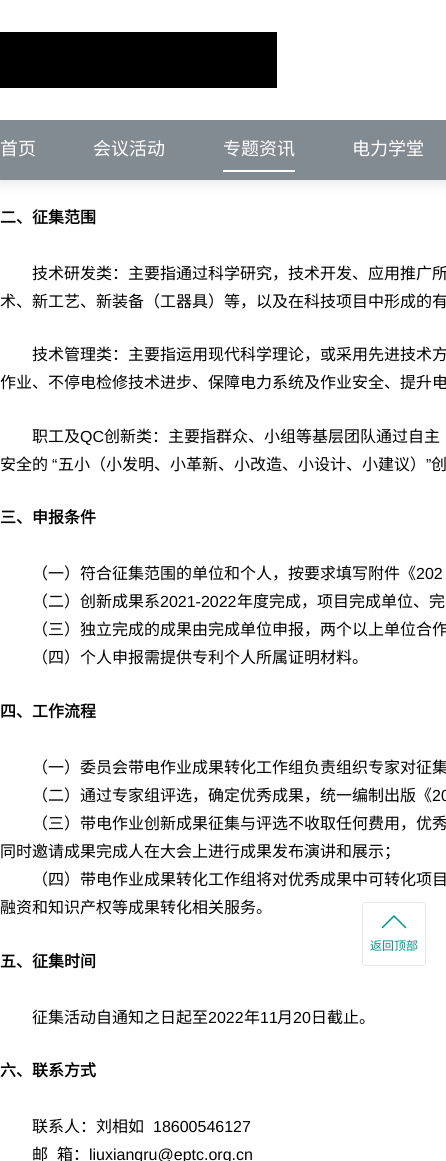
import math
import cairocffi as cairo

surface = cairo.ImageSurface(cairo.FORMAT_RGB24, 446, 1161)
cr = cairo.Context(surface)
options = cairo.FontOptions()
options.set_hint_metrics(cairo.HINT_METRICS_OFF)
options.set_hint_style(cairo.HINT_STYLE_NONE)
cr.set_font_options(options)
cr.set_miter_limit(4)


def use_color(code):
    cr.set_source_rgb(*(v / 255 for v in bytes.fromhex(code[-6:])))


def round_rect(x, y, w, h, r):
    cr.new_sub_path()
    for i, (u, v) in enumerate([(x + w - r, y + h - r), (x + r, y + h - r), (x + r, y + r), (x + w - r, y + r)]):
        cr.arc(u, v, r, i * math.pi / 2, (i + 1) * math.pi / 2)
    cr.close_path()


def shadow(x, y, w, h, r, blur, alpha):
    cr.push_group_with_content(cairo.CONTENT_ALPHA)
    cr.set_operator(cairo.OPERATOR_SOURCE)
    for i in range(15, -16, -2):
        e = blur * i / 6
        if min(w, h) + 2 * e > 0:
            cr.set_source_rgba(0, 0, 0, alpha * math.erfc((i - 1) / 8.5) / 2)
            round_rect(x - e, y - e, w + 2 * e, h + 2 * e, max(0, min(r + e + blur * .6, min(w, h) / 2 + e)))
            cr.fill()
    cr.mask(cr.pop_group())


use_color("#ffffff")
cr.paint()
use_color("#000f29")
shadow(-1, 3, 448, 182, 0, 6, 0.09)
use_color("#ffffff")
cr.rectangle(0, 0, 446, 120)
cr.fill()
use_color("#000000")
cr.rectangle(0, 32, 277, 56)
cr.fill()
use_color("#838b92")
cr.rectangle(0, 120, 446, 60)
cr.fill()
cr.select_font_face("Noto Sans CJK SC")
cr.set_font_size(18)
use_color("#ffffff")
cr.move_to(0, 155)
cr.show_text("首页")
cr.move_to(93, 155)
cr.show_text("会议活动")
cr.move_to(223, 155)
cr.show_text("专题资讯")
cr.rectangle(223, 170, 72, 2)
cr.fill()
cr.move_to(352, 155)
cr.show_text("电力学堂")
cr.select_font_face("Noto Sans CJK SC", cairo.FONT_SLANT_NORMAL, cairo.FONT_WEIGHT_BOLD)
cr.set_font_size(16)
use_color("#000000")
cr.move_to(0, 223)
cr.show_text("二、征集范围")
cr.select_font_face("Noto Sans CJK SC")
cr.move_to(32, 279)
cr.show_text("技术研发类：主要指通过科学研究，技术开发、应用推广所")
cr.move_to(0, 307)
cr.show_text("术、新工艺、新装备（工器具）等，以及在科技项目中形成的有")
cr.move_to(32, 360)
cr.show_text("技术管理类：主要指运用现代科学理论，或采用先进技术方")
cr.move_to(0, 388)
cr.show_text("作业、不停电检修技术进步、保障电力系统及作业安全、提升电")
cr.move_to(32, 442)
cr.show_text("职工及")
cr.select_font_face("Liberation Sans")
cr.move_to(80, 442)
cr.show_text("QC")
cr.select_font_face("Noto Sans CJK SC")
cr.move_to(104, 442)
cr.show_text("创新类：主要指群众、小组等基层团队通过自主")
cr.move_to(0, 470)
cr.show_text("安全的")
cr.select_font_face("Liberation Sans")
cr.move_to(52, 470)
cr.show_text("“")
cr.select_font_face("Noto Sans CJK SC")
cr.move_to(58, 470)
cr.show_text("五小（小发明、小革新、小改造、小设计、小建议）")
cr.select_font_face("Liberation Sans")
cr.move_to(426, 470)
cr.show_text("”")
cr.select_font_face("Noto Sans CJK SC")
cr.move_to(431, 470)
cr.show_text("创")
cr.select_font_face("Noto Sans CJK SC", cairo.FONT_SLANT_NORMAL, cairo.FONT_WEIGHT_BOLD)
cr.move_to(0, 523)
cr.show_text("三、申报条件")
cr.select_font_face("Noto Sans CJK SC")
cr.move_to(32, 579)
cr.show_text("（一）符合征集范围的单位和个人，按要求填写附件《")
cr.select_font_face("Liberation Sans")
cr.move_to(416, 579)
cr.show_text("202")
cr.select_font_face("Noto Sans CJK SC")
cr.move_to(32, 607)
cr.show_text("（二）创新成果系")
cr.select_font_face("Liberation Sans")
cr.move_to(160, 607)
cr.show_text("2021-2022")
cr.select_font_face("Noto Sans CJK SC")
cr.move_to(237, 607)
cr.show_text("年度完成，项目完成单位、完")
cr.move_to(32, 635)
cr.show_text("（三）独立完成的成果由完成单位申报，两个以上单位合作")
cr.move_to(32, 663)
cr.show_text("（四）个人申报需提供专利个人所属证明材料。")
cr.select_font_face("Noto Sans CJK SC", cairo.FONT_SLANT_NORMAL, cairo.FONT_WEIGHT_BOLD)
cr.move_to(0, 717)
cr.show_text("四、工作流程")
cr.select_font_face("Noto Sans CJK SC")
cr.move_to(32, 773)
cr.show_text("（一）委员会带电作业成果转化工作组负责组织专家对征集")
cr.move_to(32, 801)
cr.show_text("（二）通过专家组评选，确定优秀成果，统一编制出版《")
cr.select_font_face("Liberation Sans")
cr.move_to(432, 801)
cr.show_text("20")
cr.select_font_face("Noto Sans CJK SC")
cr.move_to(32, 829)
cr.show_text("（三）带电作业创新成果征集与评选不收取任何费用，优秀")
cr.move_to(0, 857)
cr.show_text("同时邀请成果完成人在大会上进行成果发布演讲和展示；")
cr.move_to(32, 885)
cr.show_text("（四）带电作业成果转化工作组将对优秀成果中可转化项目")
cr.move_to(0, 913)
cr.show_text("融资和知识产权等成果转化相关服务。")
cr.select_font_face("Noto Sans CJK SC", cairo.FONT_SLANT_NORMAL, cairo.FONT_WEIGHT_BOLD)
cr.move_to(0, 967)
cr.show_text("五、征集时间")
cr.select_font_face("Noto Sans CJK SC")
cr.move_to(32, 1023)
cr.show_text("征集活动自通知之日起至")
cr.select_font_face("Liberation Sans")
cr.move_to(208, 1023)
cr.show_text("2022")
cr.select_font_face("Noto Sans CJK SC")
cr.move_to(244, 1023)
cr.show_text("年")
cr.select_font_face("Liberation Sans")
cr.move_to(260, 1023)
cr.show_text("11")
cr.select_font_face("Noto Sans CJK SC")
cr.move_to(277, 1023)
cr.show_text("月")
cr.select_font_face("Liberation Sans")
cr.move_to(293, 1023)
cr.show_text("20")
cr.select_font_face("Noto Sans CJK SC")
cr.move_to(311, 1023)
cr.show_text("日截止。")
cr.select_font_face("Noto Sans CJK SC", cairo.FONT_SLANT_NORMAL, cairo.FONT_WEIGHT_BOLD)
cr.move_to(0, 1076)
cr.show_text("六、联系方式")
cr.select_font_face("Noto Sans CJK SC")
cr.move_to(32, 1132)
cr.show_text("联系人：刘相如")
cr.select_font_face("Liberation Sans")
cr.move_to(153, 1132)
cr.show_text("18600546127")
cr.select_font_face("Noto Sans CJK SC")
cr.move_to(32, 1160)
cr.show_text("邮")
cr.move_to(57, 1160)
cr.show_text("箱：")
cr.select_font_face("Liberation Sans")
cr.move_to(89, 1160)
cr.show_text("liuxiangru@eptc.org.cn")
round_rect(362.5, 902.5, 63, 63, 3.5)
use_color("#e7e7e7")
cr.set_line_width(1)
cr.stroke()
cr.new_path()
cr.move_to(382.5, 927.5)
cr.line_to(394, 916)
cr.line_to(405.5, 927.5)
use_color("#009688")
cr.set_line_width(1.5)
cr.set_line_cap(cairo.LINE_CAP_ROUND)
cr.set_line_join(cairo.LINE_JOIN_ROUND)
cr.stroke()
cr.select_font_face("Noto Sans CJK SC")
cr.set_font_size(12)
cr.move_to(370, 950)
cr.show_text("返回顶部")
surface.write_to_png("result.png")
